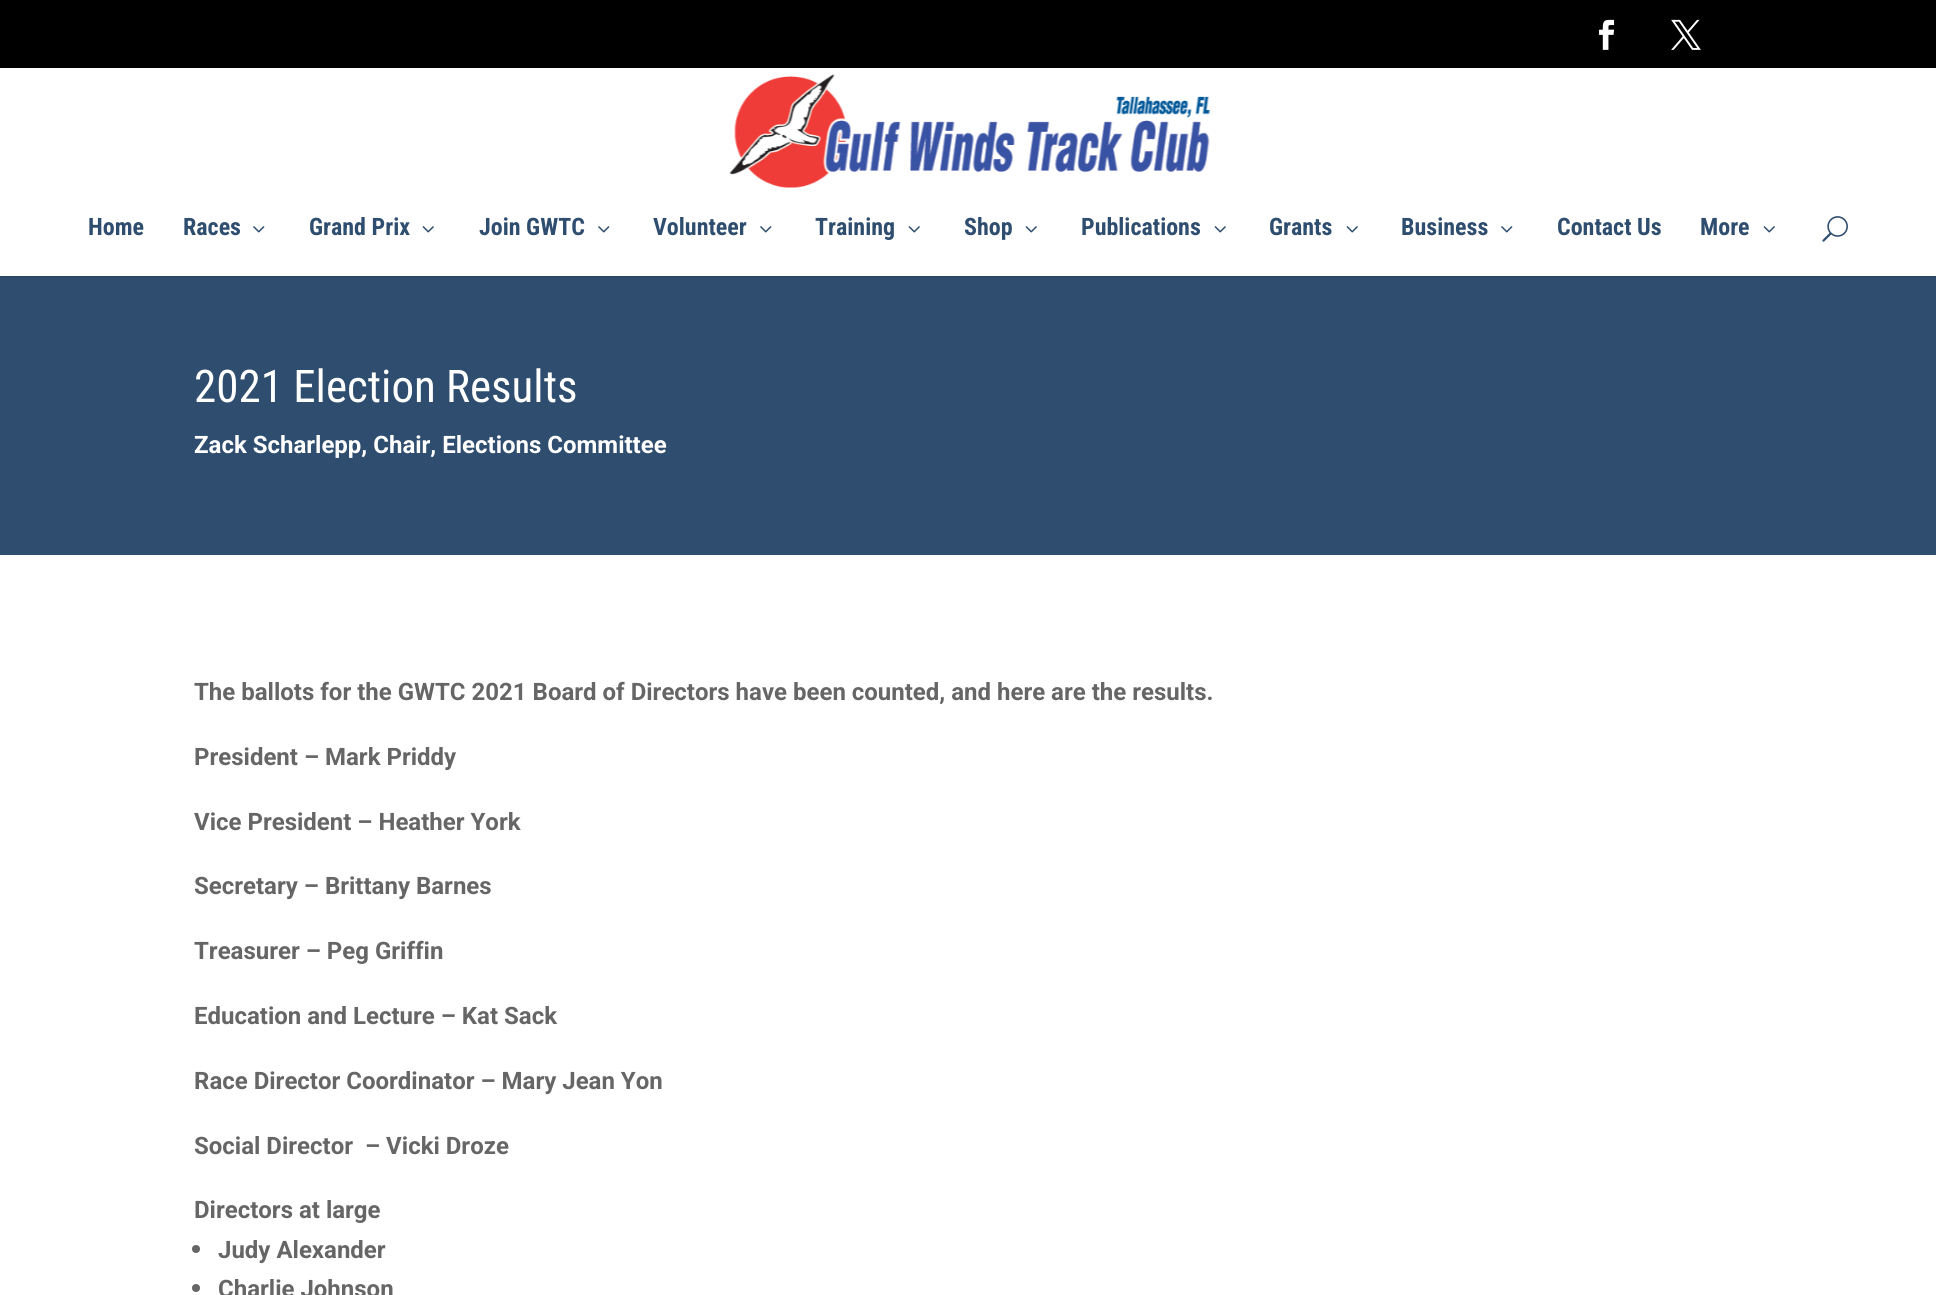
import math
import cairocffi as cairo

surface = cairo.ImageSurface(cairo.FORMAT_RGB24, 1936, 1295)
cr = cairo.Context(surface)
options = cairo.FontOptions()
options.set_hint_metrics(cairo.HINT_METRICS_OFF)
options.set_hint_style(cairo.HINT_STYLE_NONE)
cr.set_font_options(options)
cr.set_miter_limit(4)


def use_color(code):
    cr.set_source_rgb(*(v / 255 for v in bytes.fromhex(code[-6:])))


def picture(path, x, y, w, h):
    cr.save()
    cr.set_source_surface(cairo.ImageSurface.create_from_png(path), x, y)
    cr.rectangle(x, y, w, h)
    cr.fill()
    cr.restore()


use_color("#ffffff")
cr.paint()
use_color("#000000")
cr.rectangle(0, 0, 1936, 68)
cr.fill()
picture("img1.png", 1599, 19, 16, 31)
picture("img2.png", 1671, 19, 30, 31)
use_color("#2a4664")
cr.new_path()
cr.move_to(0, 276)
cr.line_to(0, 278)
cr.line_to(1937, 278)
cr.line_to(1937, 69)
cr.line_to(1936, 69)
cr.line_to(1936, 276)
cr.close_path()
cr.fill()
picture("img3.png", 729, 74, 482, 114)
cr.select_font_face("Roboto Condensed", cairo.FONT_SLANT_NORMAL, cairo.FONT_WEIGHT_BOLD)
cr.set_font_size(24)
use_color("#2f4e6f")
cr.move_to(88, 235)
cr.show_text("Home")
cr.move_to(183, 235)
cr.show_text("Races")
picture("img4.png", 253, 226, 12, 7)
cr.move_to(309, 235)
cr.show_text("Grand Prix")
picture("img5.png", 422, 226, 12, 7)
cr.move_to(479, 235)
cr.show_text("Join GWTC")
picture("img4.png", 598, 226, 12, 7)
cr.move_to(653, 235)
cr.show_text("Volunteer")
picture("img4.png", 760, 226, 12, 7)
cr.move_to(815, 235)
cr.show_text("Training")
picture("img5.png", 908, 226, 12, 7)
cr.move_to(964, 235)
cr.show_text("Shop")
picture("img5.png", 1025, 226, 12, 7)
cr.move_to(1081, 235)
cr.show_text("Publications")
picture("img5.png", 1214, 226, 12, 7)
cr.move_to(1269, 235)
cr.show_text("Grants")
picture("img5.png", 1346, 226, 12, 7)
cr.move_to(1401, 235)
cr.show_text("Business")
picture("img4.png", 1501, 226, 12, 7)
cr.move_to(1557, 235)
cr.show_text("Contact Us")
cr.move_to(1700, 235)
cr.show_text("More")
picture("img5.png", 1763, 226, 12, 7)
picture("img6.png", 1822, 216, 26, 26)
cr.rectangle(0, 278, 1936, 277)
cr.fill()
cr.select_font_face("Roboto Condensed")
cr.set_font_size(45)
use_color("#ffffff")
cr.move_to(194, 402)
cr.show_text("2021 Election Results")
cr.select_font_face("Roboto", cairo.FONT_SLANT_NORMAL, cairo.FONT_WEIGHT_BOLD)
cr.set_font_size(24)
cr.move_to(194, 453)
cr.show_text("Zack Scharlepp, Chair, Elections Committee")
use_color("#666666")
cr.move_to(194, 700)
cr.show_text("The ballots for the GWTC 2021 Board of Directors have been counted, and here are the results.")
cr.move_to(194, 765)
cr.show_text("President – Mark Priddy")
cr.move_to(194, 830)
cr.show_text("Vice President – Heather York")
cr.move_to(194, 894)
cr.show_text("Secretary – Brittany Barnes")
cr.move_to(194, 959)
cr.show_text("Treasurer – Peg Griffin")
cr.move_to(194, 1024)
cr.show_text("Education and Lecture – Kat Sack")
cr.move_to(194, 1089)
cr.show_text("Race Director Coordinator – Mary Jean Yon")
cr.move_to(194, 1154)
cr.show_text("Social Director")
cr.move_to(365, 1154)
cr.show_text("– Vicki Droze")
cr.move_to(194, 1218)
cr.show_text("Directors at large")
cr.new_path()
cr.arc(196, 1249, 4, 0, 2 * math.pi)
cr.fill()
cr.move_to(218, 1258)
cr.show_text("Judy Alexander")
cr.new_path()
cr.arc(196, 1288, 4, 0, 2 * math.pi)
cr.fill()
cr.move_to(218, 1297)
cr.show_text("Charlie Johnson")
surface.write_to_png("result.png")
